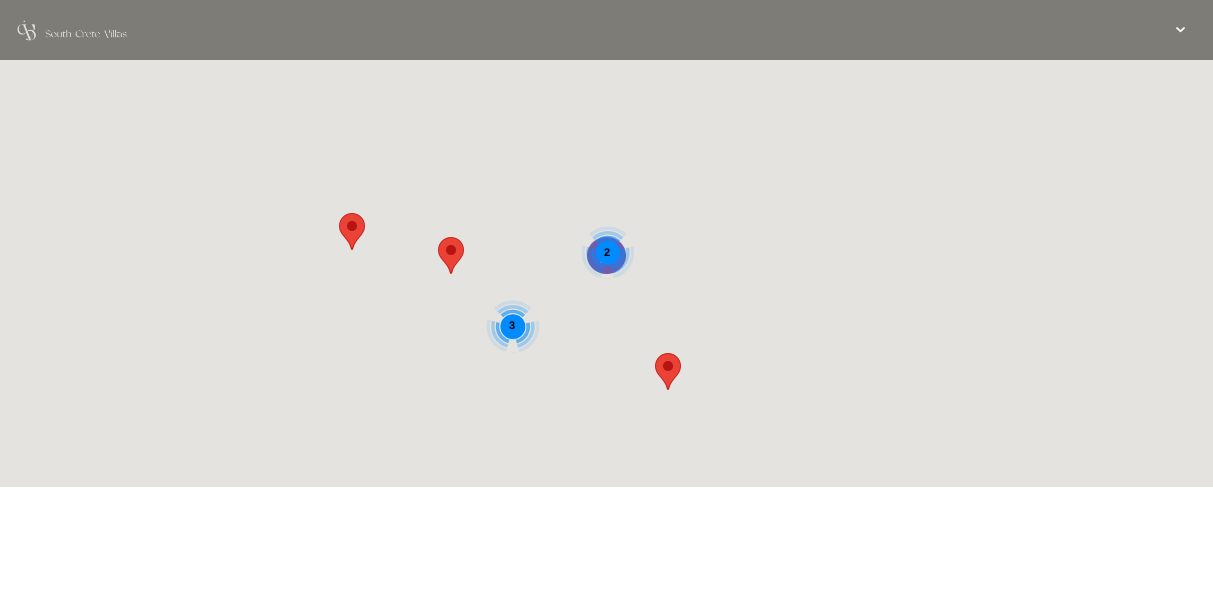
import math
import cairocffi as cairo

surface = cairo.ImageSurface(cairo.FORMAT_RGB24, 1213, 608)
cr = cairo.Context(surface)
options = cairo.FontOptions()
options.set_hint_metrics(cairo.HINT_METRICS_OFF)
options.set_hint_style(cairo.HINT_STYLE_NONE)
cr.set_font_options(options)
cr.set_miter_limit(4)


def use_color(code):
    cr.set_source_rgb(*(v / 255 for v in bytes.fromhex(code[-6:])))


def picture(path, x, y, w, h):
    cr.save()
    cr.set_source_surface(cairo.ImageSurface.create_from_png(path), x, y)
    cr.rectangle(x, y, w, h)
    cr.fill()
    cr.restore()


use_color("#ffffff")
cr.paint()
use_color("#7d7c76")
cr.rectangle(0, 0, 1213, 60)
cr.fill()
picture("img1.png", 17, 20, 110, 21)
picture("img2.png", 1176, 27, 9, 6)
use_color("#e5e3df")
cr.rectangle(0, 60, 1213, 427)
cr.fill()
picture("img3.png", 339, 213, 26, 37)
picture("img3.png", 438, 237, 26, 37)
picture("img4.png", 587, 237, 39, 37)
picture("img3.png", 655, 353, 26, 37)
picture("img5.png", 581, 226, 53, 53)
cr.select_font_face("Liberation Sans", cairo.FONT_SLANT_NORMAL, cairo.FONT_WEIGHT_BOLD)
cr.set_font_size(11)
use_color("#000000")
cr.move_to(604, 256)
cr.show_text("2")
picture("img6.png", 486, 300, 53, 53)
cr.move_to(509, 329)
cr.show_text("3")
surface.write_to_png("result.png")
